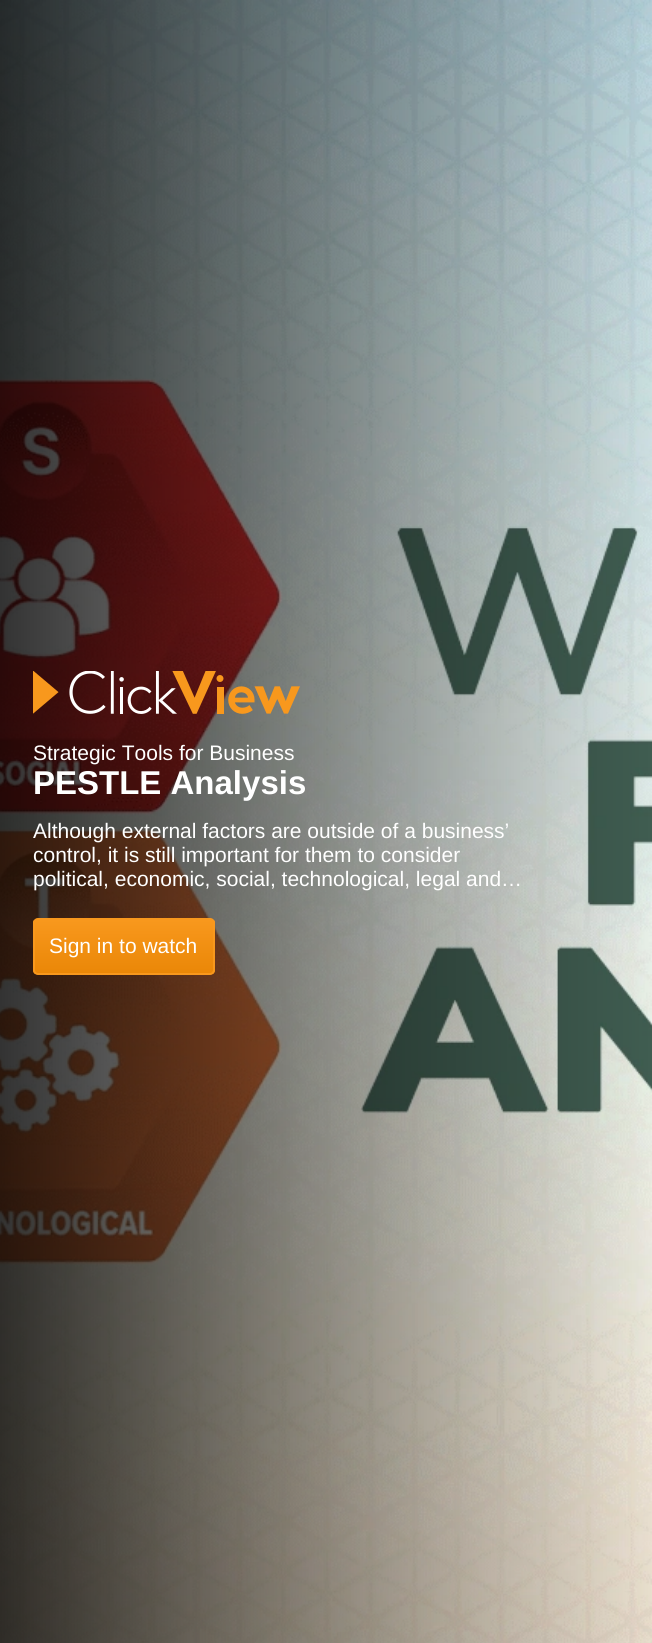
import math
import cairocffi as cairo

surface = cairo.ImageSurface(cairo.FORMAT_RGB24, 652, 1643)
cr = cairo.Context(surface)
options = cairo.FontOptions()
options.set_hint_metrics(cairo.HINT_METRICS_OFF)
options.set_hint_style(cairo.HINT_STYLE_NONE)
cr.set_font_options(options)
cr.set_miter_limit(4)


def use_color(code):
    cr.set_source_rgb(*(v / 255 for v in bytes.fromhex(code[-6:])))


def round_rect(x, y, w, h, r):
    cr.new_sub_path()
    for i, (u, v) in enumerate([(x + w - r, y + h - r), (x + r, y + h - r), (x + r, y + r), (x + w - r, y + r)]):
        cr.arc(u, v, r, i * math.pi / 2, (i + 1) * math.pi / 2)
    cr.close_path()


def picture(path, x, y, w, h):
    cr.save()
    cr.set_source_surface(cairo.ImageSurface.create_from_png(path), x, y)
    cr.rectangle(x, y, w, h)
    cr.fill()
    cr.restore()


use_color("#ffffff")
cr.paint()
picture("img1.png", 0, 0, 652, 1643)
picture("img2.png", 33, 671, 267, 43)
cr.select_font_face("Liberation Sans")
cr.set_font_size(21)
use_color("#ffffff")
cr.move_to(33, 760)
cr.show_text("Strategic Tools for Business")
cr.select_font_face("Liberation Sans", cairo.FONT_SLANT_NORMAL, cairo.FONT_WEIGHT_BOLD)
cr.set_font_size(33)
cr.move_to(33, 794)
cr.show_text("PESTLE Analysis")
cr.select_font_face("Liberation Sans")
cr.set_font_size(21)
cr.move_to(33, 838)
cr.show_text("Although external factors are outside of a business’")
cr.move_to(33, 862)
cr.show_text("control, it is still important for them to consider")
cr.move_to(33, 886)
cr.show_text("political, economic, social, technological, legal and…")
cr.save()
round_rect(33, 918, 182, 57, 5)
cr.clip()
gradient = cairo.LinearGradient(124, 920, 124, 974)
gradient.add_color_stop_rgba(0, 0.973, 0.596, 0.114, 1)
gradient.add_color_stop_rgba(1, 0.918, 0.529, 0.027, 1)
cr.set_source(gradient)
cr.rectangle(33, 920, 182, 54)
cr.fill()
cr.restore()
round_rect(34, 919, 180, 55, 4)
use_color("#f8981d")
cr.stroke()
use_color("#ffffff")
cr.move_to(49, 953)
cr.show_text("Sign in to watch")
surface.write_to_png("result.png")
